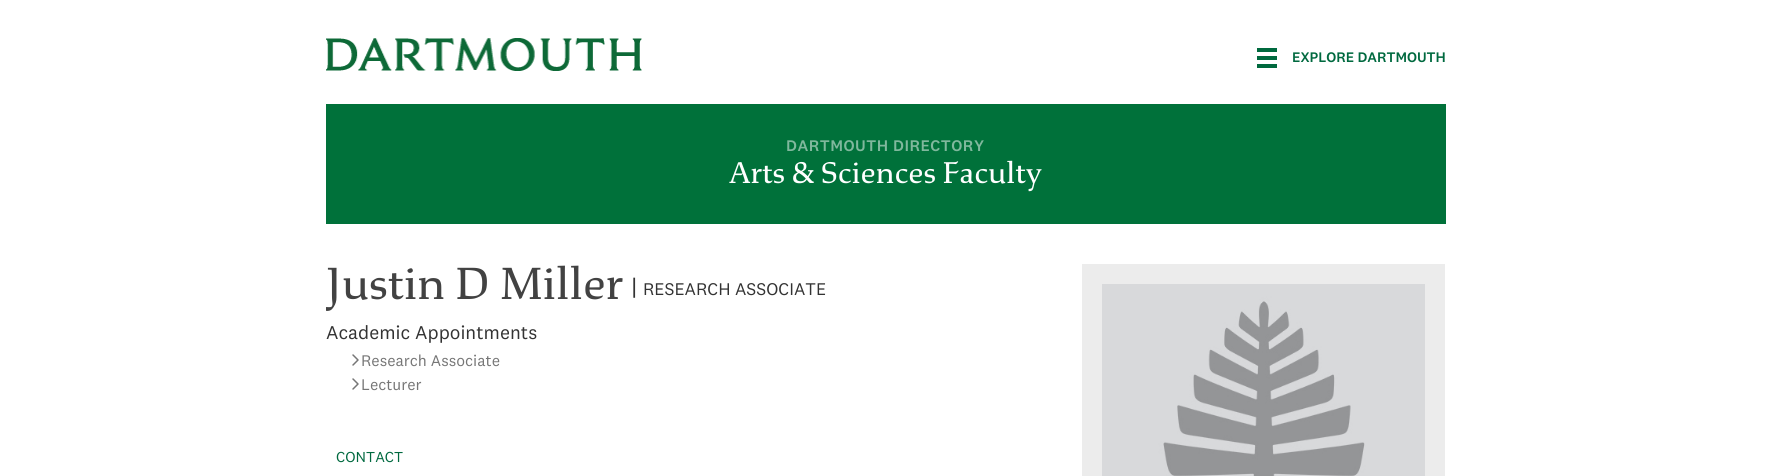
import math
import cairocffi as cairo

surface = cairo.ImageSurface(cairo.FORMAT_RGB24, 1771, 476)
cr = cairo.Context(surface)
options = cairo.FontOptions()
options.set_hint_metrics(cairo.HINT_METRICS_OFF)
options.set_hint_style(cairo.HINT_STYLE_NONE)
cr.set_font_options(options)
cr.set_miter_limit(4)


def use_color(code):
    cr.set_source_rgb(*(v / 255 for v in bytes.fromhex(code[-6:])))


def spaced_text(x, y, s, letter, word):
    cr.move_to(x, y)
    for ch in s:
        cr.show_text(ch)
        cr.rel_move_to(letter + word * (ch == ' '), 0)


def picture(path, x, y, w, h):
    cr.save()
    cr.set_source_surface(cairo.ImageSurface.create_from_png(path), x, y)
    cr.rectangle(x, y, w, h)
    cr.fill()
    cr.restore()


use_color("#ffffff")
cr.paint()
picture("img1.png", 326, 38, 316, 33)
picture("img2.png", 1257, 48, 20, 20)
cr.select_font_face("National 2 Medium")
cr.set_font_size(14.4)
use_color("#00693f")
cr.move_to(1292, 62)
cr.show_text("EXPLORE DARTMOUTH")
use_color("#00713a")
cr.rectangle(326, 104, 1120, 120)
cr.fill()
cr.set_font_size(16)
use_color("#80b89d")
spaced_text(786, 151, "DARTMOUTH DIRECTORY", 0.5, 0)
cr.select_font_face("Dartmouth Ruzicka")
cr.set_font_size(32)
use_color("#ffffff")
cr.move_to(729, 183)
cr.show_text("Arts & Sciences Faculty")
cr.save()
cr.rectangle(326, 264, 736, 146)
cr.clip()
cr.set_font_size(48)
use_color("#424242")
cr.move_to(326, 299)
cr.show_text("Justin D Miller")
cr.restore()
cr.select_font_face("National 2")
cr.set_font_size(24)
use_color("#333333")
cr.move_to(631, 295)
cr.show_text("|")
cr.set_font_size(17.6)
cr.move_to(643, 295)
cr.show_text("RESEARCH ASSOCIATE")
cr.set_font_size(19.25)
cr.move_to(326, 339)
cr.show_text("Academic Appointments")
picture("img3.png", 352, 354, 7, 12)
cr.set_font_size(16)
use_color("#767676")
cr.move_to(361, 366)
cr.show_text("Research Associate")
picture("img3.png", 352, 378, 7, 12)
cr.move_to(361, 390)
cr.show_text("Lecturer")
cr.set_font_size(15)
use_color("#00693f")
cr.move_to(336, 462)
cr.show_text("CONTACT")
use_color("#ececec")
cr.rectangle(1082, 264, 363, 212)
cr.fill()
picture("img4.png", 1102, 284, 323, 192)
surface.write_to_png("result.png")
